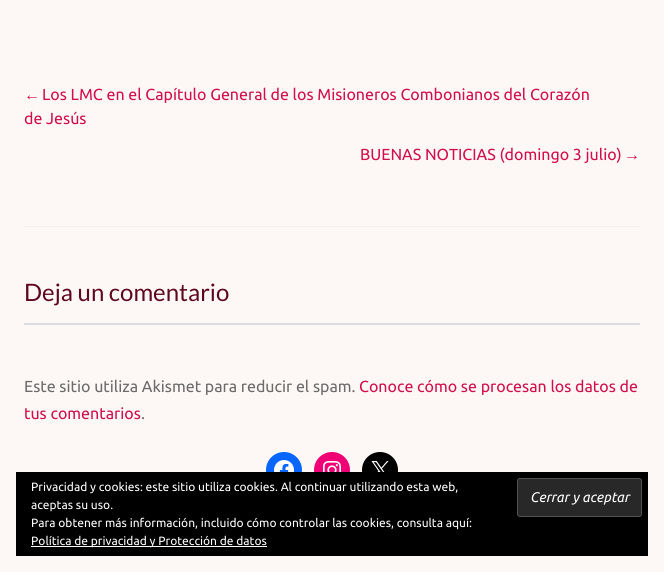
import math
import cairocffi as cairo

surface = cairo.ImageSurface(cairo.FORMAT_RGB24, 664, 572)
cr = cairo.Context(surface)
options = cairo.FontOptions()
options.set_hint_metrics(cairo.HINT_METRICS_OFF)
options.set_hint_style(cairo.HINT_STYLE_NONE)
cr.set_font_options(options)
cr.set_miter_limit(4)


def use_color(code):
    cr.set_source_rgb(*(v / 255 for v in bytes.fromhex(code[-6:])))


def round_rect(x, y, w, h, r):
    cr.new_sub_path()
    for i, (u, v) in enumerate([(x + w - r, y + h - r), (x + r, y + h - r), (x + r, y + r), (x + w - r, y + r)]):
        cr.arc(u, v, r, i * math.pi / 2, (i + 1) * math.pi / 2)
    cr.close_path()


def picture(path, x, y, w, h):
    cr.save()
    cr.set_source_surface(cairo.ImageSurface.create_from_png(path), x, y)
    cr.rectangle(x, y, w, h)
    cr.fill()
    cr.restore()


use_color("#fdf8f6")
cr.paint()
cr.select_font_face("Liberation Sans")
cr.set_font_size(16)
use_color("#d00f4c")
cr.move_to(24, 100)
cr.show_text("←")
cr.select_font_face("Ubuntu")
cr.move_to(42, 100)
cr.show_text("Los LMC en el Capítulo General de los Misioneros Combonianos del Corazón")
cr.move_to(24, 124)
cr.show_text("de Jesús")
cr.move_to(360, 160)
cr.show_text("BUENAS NOTICIAS (domingo 3 julio)")
cr.select_font_face("Liberation Sans")
cr.move_to(624, 160)
cr.show_text("→")
use_color("#f3f0ef")
cr.rectangle(24, 226, 616, 1)
cr.fill()
cr.select_font_face("Lato")
cr.set_font_size(24)
use_color("#5e0722")
cr.move_to(24, 301)
cr.show_text("Deja un comentario")
use_color("#dcdcde")
cr.rectangle(24, 323, 616, 2)
cr.fill()
cr.select_font_face("Ubuntu")
cr.set_font_size(16)
use_color("#6b6b6b")
cr.move_to(24, 392)
cr.show_text("Este sitio utiliza Akismet para reducir el spam.")
use_color("#d00f4c")
cr.move_to(359, 392)
cr.show_text("Conoce cómo se procesan los datos de")
cr.move_to(24, 419)
cr.show_text("tus comentarios")
use_color("#6b6b6b")
cr.move_to(141, 419)
cr.show_text(".")
use_color("#0866ff")
cr.new_path()
cr.arc(284, 470, 18, 0, 2 * math.pi)
cr.fill()
picture("img1.png", 274, 460, 20, 12)
use_color("#f00075")
cr.arc(332, 470, 18, 0, 2 * math.pi)
cr.fill()
picture("img2.png", 323, 461, 18, 11)
use_color("#000000")
cr.arc(380, 470, 18, 0, 2 * math.pi)
cr.fill()
picture("img3.png", 371, 461, 18, 11)
cr.rectangle(16, 472, 632, 84)
cr.fill()
cr.set_font_size(12)
use_color("#ffffff")
cr.move_to(31, 491)
cr.show_text("Privacidad y cookies: este sitio utiliza cookies. Al continuar utilizando esta web,")
cr.move_to(31, 509)
cr.show_text("aceptas su uso.")
use_color("#282828")
round_rect(517.5, 478.5, 124, 38, 2.5)
cr.fill_preserve()
use_color("#535353")
cr.set_line_width(1)
cr.stroke()
cr.select_font_face("Ubuntu", cairo.FONT_SLANT_ITALIC)
cr.set_font_size(14)
use_color("#ffffff")
cr.move_to(530, 502)
cr.show_text("Cerrar y aceptar")
cr.select_font_face("Ubuntu")
cr.set_font_size(12)
cr.move_to(31, 527)
cr.show_text("Para obtener más información, incluido cómo controlar las cookies, consulta aquí:")
cr.rectangle(31, 546, 236, 1)
cr.fill()
cr.move_to(31, 545)
cr.show_text("Política de privacidad y Protección de datos")
surface.write_to_png("result.png")
